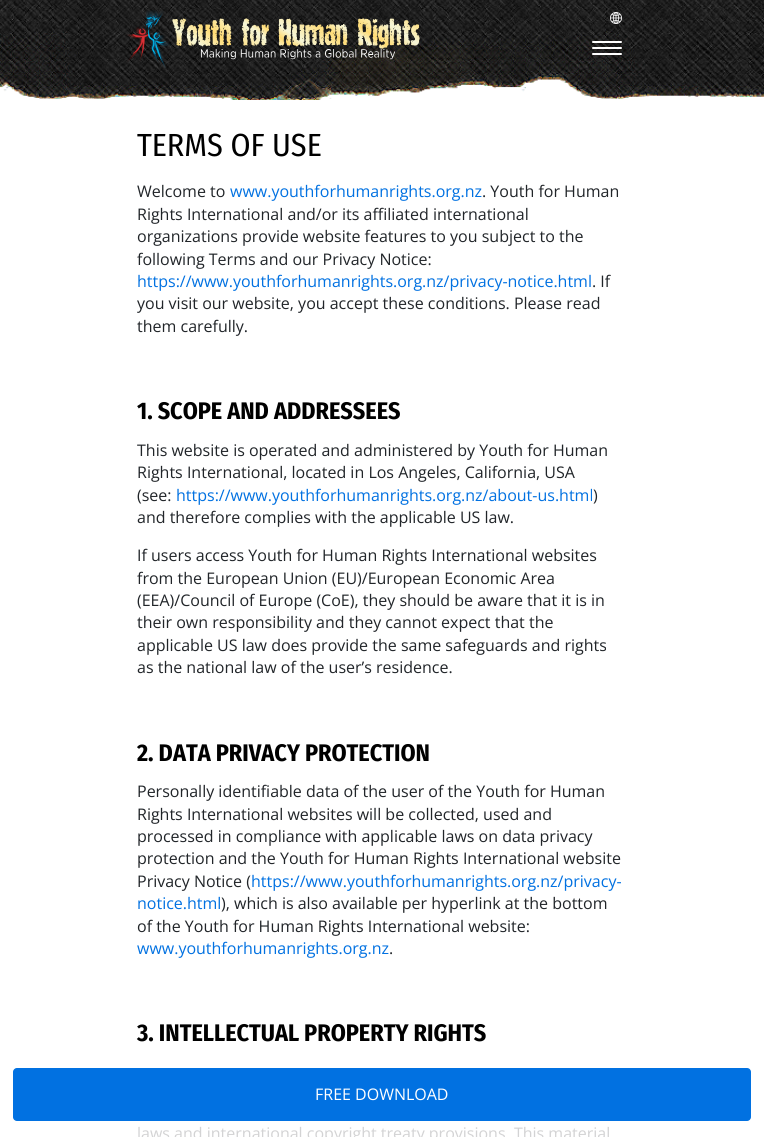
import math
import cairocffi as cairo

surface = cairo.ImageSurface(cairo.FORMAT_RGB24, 764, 1137)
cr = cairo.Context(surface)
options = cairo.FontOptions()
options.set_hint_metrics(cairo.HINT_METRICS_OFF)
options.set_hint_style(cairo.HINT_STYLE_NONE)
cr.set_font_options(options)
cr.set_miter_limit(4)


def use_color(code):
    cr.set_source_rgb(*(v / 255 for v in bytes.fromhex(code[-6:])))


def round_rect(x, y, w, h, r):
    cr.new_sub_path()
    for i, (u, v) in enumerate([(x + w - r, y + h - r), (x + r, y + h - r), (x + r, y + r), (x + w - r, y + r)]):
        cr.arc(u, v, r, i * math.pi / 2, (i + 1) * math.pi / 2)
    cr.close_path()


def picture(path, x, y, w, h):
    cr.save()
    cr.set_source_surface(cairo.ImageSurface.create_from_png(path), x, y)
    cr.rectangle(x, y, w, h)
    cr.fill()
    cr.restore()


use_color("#ffffff")
cr.paint()
picture("img1.png", 0, 0, 764, 100)
picture("img2.png", 126, 10, 45, 58)
picture("img3.png", 172, 18, 248, 42)
picture("img4.png", 610, 12, 12, 12)
use_color("#ffffff")
round_rect(592, 41, 30, 2, 1)
cr.fill()
round_rect(592, 47, 30, 2, 1)
cr.fill()
round_rect(592, 53, 30, 2, 1)
cr.fill()
cr.select_font_face("Fira Sans Condensed")
cr.set_font_size(32)
use_color("#000000")
cr.move_to(137, 156)
cr.show_text("TERMS OF USE")
cr.select_font_face("Open Sans")
cr.set_font_size(16)
use_color("#212529")
cr.move_to(137, 197)
cr.show_text("Welcome to")
use_color("#0171e1")
cr.move_to(230, 197)
cr.show_text("www.youthforhumanrights.org.nz")
use_color("#212529")
cr.move_to(482, 197)
cr.show_text(". Youth for Human")
cr.move_to(137, 220)
cr.show_text("Rights International and/or its affiliated international")
cr.move_to(137, 242)
cr.show_text("organizations provide website features to you subject to the")
cr.move_to(137, 265)
cr.show_text("following Terms and our Privacy Notice:")
use_color("#0171e1")
cr.move_to(137, 287)
cr.show_text("https://www.youthforhumanrights.org.nz/privacy-notice.html")
use_color("#212529")
cr.move_to(592, 287)
cr.show_text(". If")
cr.move_to(137, 309)
cr.show_text("you visit our website, you accept these conditions. Please read")
cr.move_to(137, 332)
cr.show_text("them carefully.")
cr.select_font_face("Fira Sans Condensed", cairo.FONT_SLANT_NORMAL, cairo.FONT_WEIGHT_BOLD)
cr.set_font_size(24)
use_color("#000000")
cr.move_to(137, 419)
cr.show_text("1. SCOPE AND ADDRESSEES")
cr.select_font_face("Open Sans")
cr.set_font_size(16)
use_color("#212529")
cr.move_to(137, 456)
cr.show_text("This website is operated and administered by Youth for Human")
cr.move_to(137, 478)
cr.show_text("Rights International, located in Los Angeles, California, USA")
cr.move_to(137, 501)
cr.show_text("(see:")
use_color("#0171e1")
cr.move_to(176, 501)
cr.show_text("https://www.youthforhumanrights.org.nz/about-us.html")
use_color("#212529")
cr.move_to(593, 501)
cr.show_text(")")
cr.move_to(137, 523)
cr.show_text("and therefore complies with the applicable US law.")
cr.move_to(137, 561)
cr.show_text("If users access Youth for Human Rights International websites")
cr.move_to(137, 584)
cr.show_text("from the European Union (EU)/European Economic Area")
cr.move_to(137, 606)
cr.show_text("(EEA)/Council of Europe (CoE), they should be aware that it is in")
cr.move_to(137, 628)
cr.show_text("their own responsibility and they cannot expect that the")
cr.move_to(137, 651)
cr.show_text("applicable US law does provide the same safeguards and rights")
cr.move_to(137, 673)
cr.show_text("as the national law of the user’s residence.")
cr.select_font_face("Fira Sans Condensed", cairo.FONT_SLANT_NORMAL, cairo.FONT_WEIGHT_BOLD)
cr.set_font_size(24)
use_color("#000000")
cr.move_to(137, 761)
cr.show_text("2. DATA PRIVACY PROTECTION")
cr.select_font_face("Open Sans")
cr.set_font_size(16)
use_color("#212529")
cr.move_to(137, 797)
cr.show_text("Personally identifiable data of the user of the Youth for Human")
cr.move_to(137, 820)
cr.show_text("Rights International websites will be collected, used and")
cr.move_to(137, 842)
cr.show_text("processed in compliance with applicable laws on data privacy")
cr.move_to(137, 864)
cr.show_text("protection and the Youth for Human Rights International website")
cr.move_to(137, 887)
cr.show_text("Privacy Notice (")
use_color("#0171e1")
cr.move_to(251, 887)
cr.show_text("https://www.youthforhumanrights.org.nz/privacy-")
cr.move_to(137, 909)
cr.show_text("notice.html")
use_color("#212529")
cr.move_to(221, 909)
cr.show_text("), which is also available per hyperlink at the bottom")
cr.move_to(137, 932)
cr.show_text("of the Youth for Human Rights International website:")
use_color("#0171e1")
cr.move_to(137, 954)
cr.show_text("www.youthforhumanrights.org.nz")
use_color("#212529")
cr.move_to(389, 954)
cr.show_text(".")
cr.select_font_face("Fira Sans Condensed", cairo.FONT_SLANT_NORMAL, cairo.FONT_WEIGHT_BOLD)
cr.set_font_size(24)
use_color("#000000")
cr.move_to(137, 1041)
cr.show_text("3. INTELLECTUAL PROPERTY RIGHTS")
cr.select_font_face("Open Sans")
cr.set_font_size(16)
use_color("#d3d3d4")
cr.move_to(137, 1139)
cr.show_text("laws and international copyright treaty provisions. This material")
use_color("#0171e1")
round_rect(13, 1068, 738, 53, 4)
cr.fill()
use_color("#ffffff")
cr.move_to(315, 1100)
cr.show_text("FREE DOWNLOAD")
surface.write_to_png("result.png")
